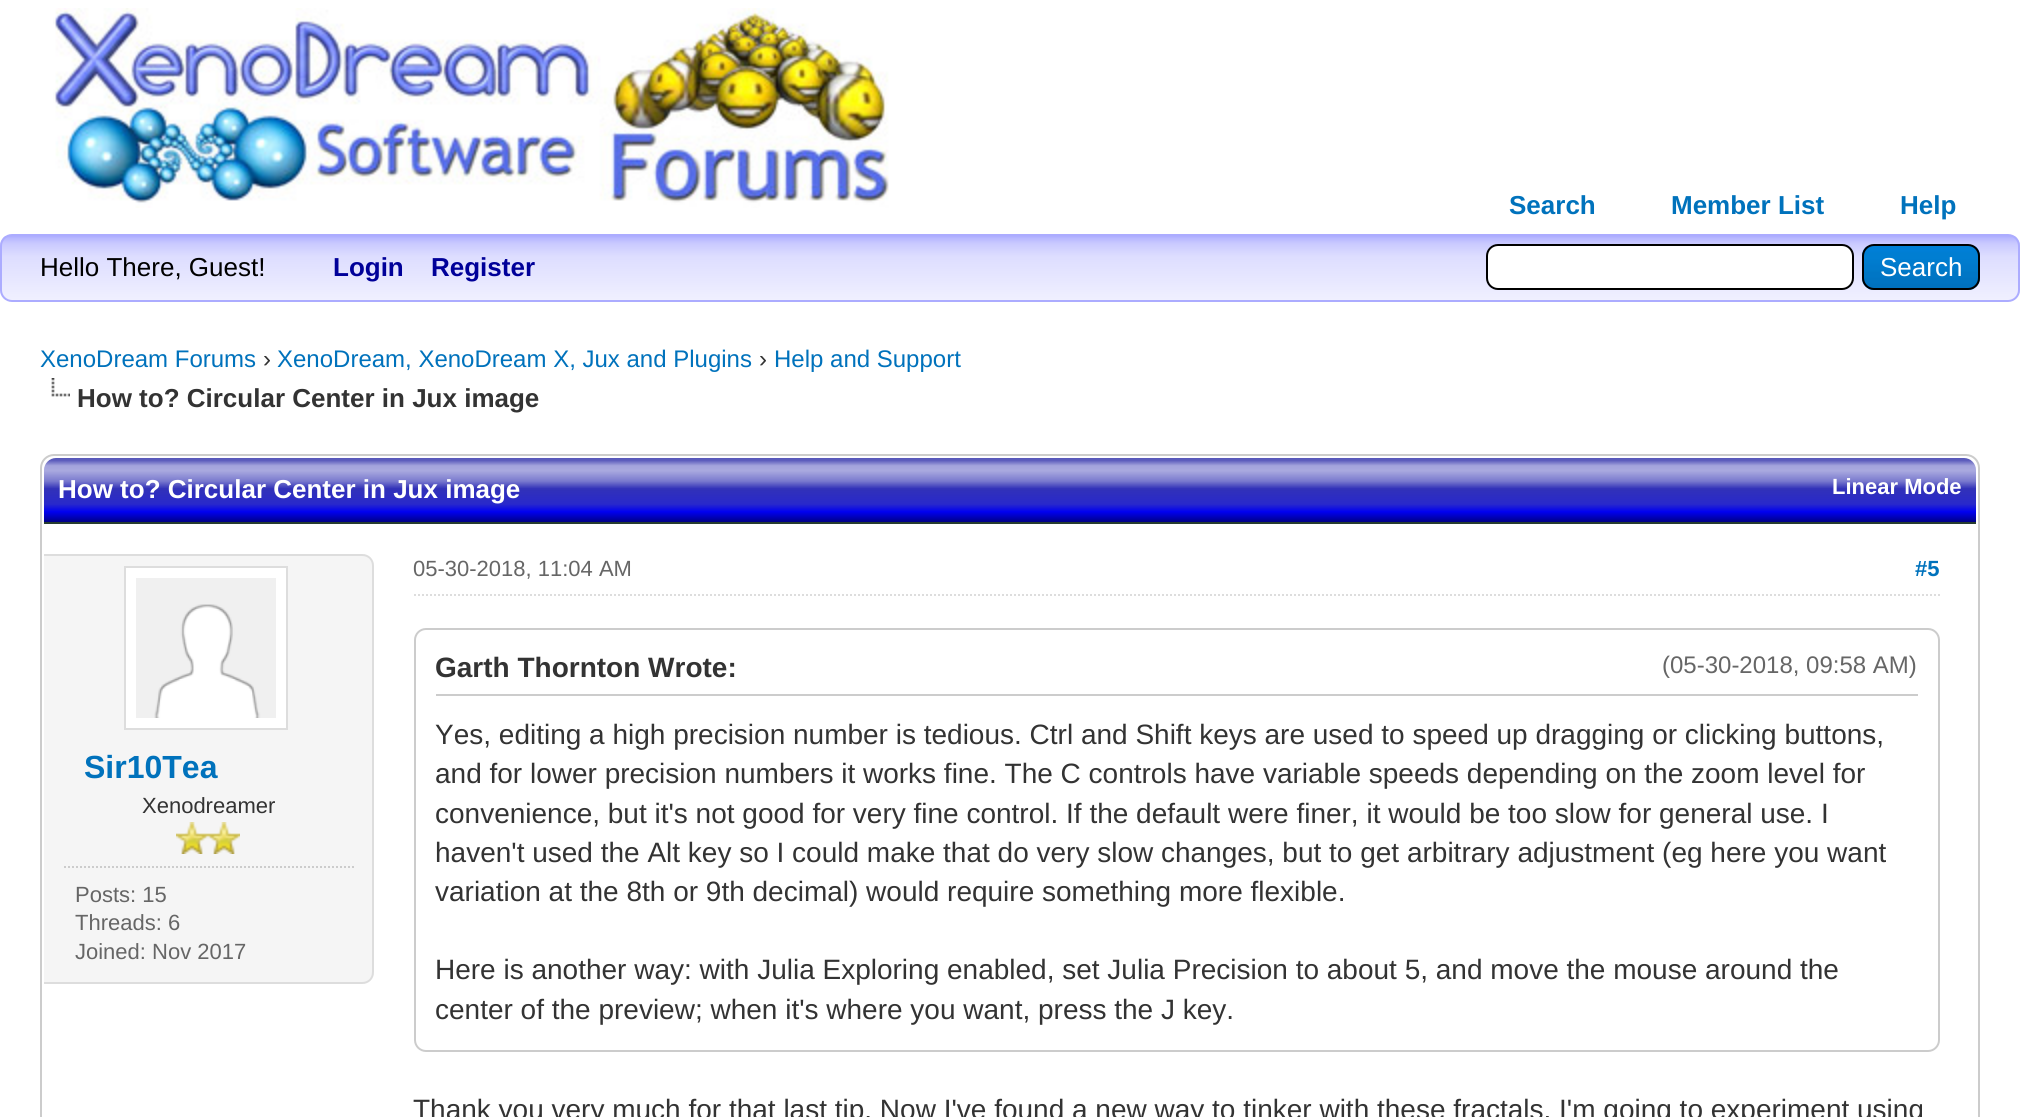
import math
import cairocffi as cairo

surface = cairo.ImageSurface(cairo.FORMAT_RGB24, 2020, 1117)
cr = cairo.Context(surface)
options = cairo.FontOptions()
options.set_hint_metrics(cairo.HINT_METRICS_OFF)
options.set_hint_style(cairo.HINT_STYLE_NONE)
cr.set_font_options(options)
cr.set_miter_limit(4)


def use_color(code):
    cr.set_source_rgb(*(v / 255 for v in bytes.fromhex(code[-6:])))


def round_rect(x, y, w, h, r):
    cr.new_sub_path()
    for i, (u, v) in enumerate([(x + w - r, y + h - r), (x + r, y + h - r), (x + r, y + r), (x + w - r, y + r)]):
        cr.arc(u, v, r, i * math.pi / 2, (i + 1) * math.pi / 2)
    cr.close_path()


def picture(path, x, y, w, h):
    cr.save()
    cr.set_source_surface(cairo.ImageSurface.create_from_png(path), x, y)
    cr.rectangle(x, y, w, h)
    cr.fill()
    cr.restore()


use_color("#ffffff")
cr.paint()
picture("img1.png", 53, 8, 836, 200)
cr.select_font_face("Liberation Sans", cairo.FONT_SLANT_NORMAL, cairo.FONT_WEIGHT_BOLD)
cr.set_font_size(26)
use_color("#0072bc")
cr.move_to(1509, 214)
cr.show_text("Search")
cr.move_to(1671, 214)
cr.show_text("Member List")
cr.move_to(1900, 214)
cr.show_text("Help")
cr.save()
round_rect(0, 234, 2020, 68, 12)
cr.clip()
gradient = cairo.LinearGradient(1010, 236, 1010, 300)
gradient.add_color_stop_rgba(0, 0.675, 0.675, 1, 1)
gradient.add_color_stop_rgba(0.04, 0.725, 0.725, 1, 1)
gradient.add_color_stop_rgba(0.12, 0.792, 0.792, 1, 1)
gradient.add_color_stop_rgba(0.32, 0.867, 0.867, 1, 1)
gradient.add_color_stop_rgba(1, 0.941, 0.941, 1, 1)
cr.set_source(gradient)
cr.rectangle(0, 236, 2020, 64)
cr.fill()
cr.restore()
round_rect(1, 235, 2018, 66, 11)
use_color("#acacff")
cr.stroke()
cr.select_font_face("Liberation Sans")
use_color("#000000")
cr.move_to(40, 276)
cr.show_text("Hello There, Guest!")
cr.select_font_face("Liberation Sans", cairo.FONT_SLANT_NORMAL, cairo.FONT_WEIGHT_BOLD)
use_color("#000099")
cr.move_to(333, 276)
cr.show_text("Login")
cr.move_to(431, 276)
cr.show_text("Register")
use_color("#ffffff")
round_rect(1487, 245, 366, 44, 11)
cr.fill_preserve()
use_color("#000000")
cr.stroke()
picture("img2.png", 1862, 246, 118, 44)
round_rect(1863, 245, 116, 44, 11)
cr.stroke()
cr.select_font_face("Liberation Sans")
use_color("#ffffff")
cr.move_to(1880, 276)
cr.show_text("Search")
cr.set_font_size(24)
use_color("#0072bc")
cr.move_to(40, 367)
cr.show_text("XenoDream Forums")
use_color("#333333")
cr.move_to(263, 367)
cr.show_text("›")
use_color("#0072bc")
cr.move_to(277, 367)
cr.show_text("XenoDream, XenoDream X, Jux and Plugins")
use_color("#333333")
cr.move_to(759, 367)
cr.show_text("›")
use_color("#0072bc")
cr.move_to(774, 367)
cr.show_text("Help and Support")
picture("img3.png", 51, 378, 19, 19)
cr.select_font_face("Liberation Sans", cairo.FONT_SLANT_NORMAL, cairo.FONT_WEIGHT_BOLD)
cr.set_font_size(26)
use_color("#333333")
cr.move_to(77, 407)
cr.show_text("How to? Circular Center in Jux image")
round_rect(41, 455, 1938, 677, 13)
use_color("#cccccc")
cr.stroke()
gradient = cairo.LinearGradient(1010, 458, 1010, 522)
gradient.add_color_stop_rgba(0, 0.341, 0.341, 0.729, 1)
gradient.add_color_stop_rgba(0.04, 0.365, 0.365, 0.741, 1)
gradient.add_color_stop_rgba(0.12, 0.639, 0.639, 0.863, 1)
gradient.add_color_stop_rgba(0.2, 0.663, 0.663, 0.875, 1)
gradient.add_color_stop_rgba(0.36, 0.478, 0.478, 0.808, 1)
gradient.add_color_stop_rgba(0.48, 0.192, 0.192, 0.722, 1)
gradient.add_color_stop_rgba(0.72, 0.161, 0.161, 0.796, 1)
gradient.add_color_stop_rgba(0.84, 0, 0, 0.941, 1)
gradient.add_color_stop_rgba(0.92, 0, 0, 0.737, 1)
gradient.add_color_stop_rgba(1, 0, 0, 0.522, 1)
cr.set_source(gradient)
cr.new_path()
cr.move_to(56, 458)
cr.line_to(1964, 458)
cr.curve_to(1970.5, 458, 1976, 463.5, 1976, 470)
cr.line_to(1976, 522)
cr.line_to(44, 522)
cr.line_to(44, 470)
cr.curve_to(44, 463.5, 49.5, 458, 56, 458)
cr.close_path()
cr.fill()
use_color("#263c30")
cr.rectangle(44, 522, 1932, 2)
cr.fill()
use_color("#ffffff")
cr.move_to(58, 498)
cr.show_text("How to? Circular Center in Jux image")
cr.set_font_size(22)
cr.move_to(1832, 494)
cr.show_text("Linear Mode")
use_color("#f5f5f5")
cr.new_path()
cr.move_to(44, 554)
cr.line_to(362, 554)
cr.curve_to(368.5, 554, 374, 559.5, 374, 566)
cr.line_to(374, 972)
cr.curve_to(374, 978.5, 368.5, 984, 362, 984)
cr.line_to(44, 984)
cr.close_path()
cr.fill()
use_color("#dddddd")
cr.set_fill_rule(cairo.FILL_RULE_EVEN_ODD)
cr.new_path()
cr.move_to(44, 554)
cr.line_to(362, 554)
cr.curve_to(369, 554, 374, 559, 374, 566)
cr.line_to(374, 972)
cr.curve_to(374, 979, 369, 984, 362, 984)
cr.line_to(44, 984)
cr.close_path()
cr.move_to(44, 556)
cr.line_to(362, 556)
cr.curve_to(368, 556, 372, 560, 372, 566)
cr.line_to(372, 972)
cr.curve_to(372, 978, 368, 982, 362, 982)
cr.line_to(44, 982)
cr.close_path()
cr.fill()
use_color("#ffffff")
cr.rectangle(125, 567, 162, 162)
cr.fill_preserve()
use_color("#dddddd")
cr.stroke()
picture("img4.png", 136, 578, 140, 140)
cr.set_font_size(32)
use_color("#0072bc")
cr.move_to(84, 778)
cr.show_text("Sir10Tea")
cr.select_font_face("Liberation Sans")
cr.set_font_size(22)
use_color("#333333")
cr.move_to(142, 813)
cr.show_text("Xenodreamer")
picture("img5.png", 176, 822, 32, 32)
picture("img5.png", 208, 822, 32, 32)
cr.new_path()
cr.move_to(64, 867)
cr.line_to(354, 867)
use_color("#cccccc")
cr.set_dash([2, 2])
cr.stroke()
use_color("#666666")
cr.move_to(75, 902)
cr.show_text("Posts: 15")
cr.move_to(75, 930)
cr.show_text("Threads: 6")
cr.move_to(75, 959)
cr.show_text("Joined: Nov 2017")
cr.new_path()
cr.move_to(414, 595)
cr.line_to(1940, 595)
use_color("#dddddd")
cr.stroke()
use_color("#666666")
cr.move_to(413, 576)
cr.show_text("05-30-2018, 11:04 AM")
cr.select_font_face("Liberation Sans", cairo.FONT_SLANT_NORMAL, cairo.FONT_WEIGHT_BOLD)
use_color("#0072bc")
cr.move_to(1915, 576)
cr.show_text("#5")
round_rect(415, 629, 1524, 422, 11)
use_color("#cccccc")
cr.set_dash([])
cr.stroke()
cr.rectangle(436, 694, 1482, 2)
cr.fill()
cr.set_font_size(28)
use_color("#333333")
cr.move_to(435, 677)
cr.show_text("Garth Thornton Wrote:")
cr.select_font_face("Liberation Sans")
cr.set_font_size(24)
use_color("#666666")
cr.move_to(1662, 673)
cr.show_text("(05-30-2018, 09:58 AM)")
cr.set_font_size(28)
use_color("#333333")
cr.move_to(435, 744)
cr.show_text("Yes, editing a high precision number is tedious. Ctrl and Shift keys are used to speed up dragging or clicking buttons,")
cr.move_to(435, 783)
cr.show_text("and for lower precision numbers it works fine. The C controls have variable speeds depending on the zoom level for")
cr.move_to(435, 823)
cr.show_text("convenience, but it's not good for very fine control. If the default were finer, it would be too slow for general use. I")
cr.move_to(435, 862)
cr.show_text("haven't used the Alt key so I could make that do very slow changes, but to get arbitrary adjustment (eg here you want")
cr.move_to(435, 901)
cr.show_text("variation at the 8th or 9th decimal) would require something more flexible.")
cr.move_to(435, 979)
cr.show_text("Here is another way: with Julia Exploring enabled, set Julia Precision to about 5, and move the mouse around the")
cr.move_to(435, 1019)
cr.show_text("center of the preview; when it's where you want, press the J key.")
cr.move_to(413, 1119)
cr.show_text("Thank you very much for that last tip. Now I've found a new way to tinker with these fractals. I'm going to experiment using")
surface.write_to_png("result.png")
